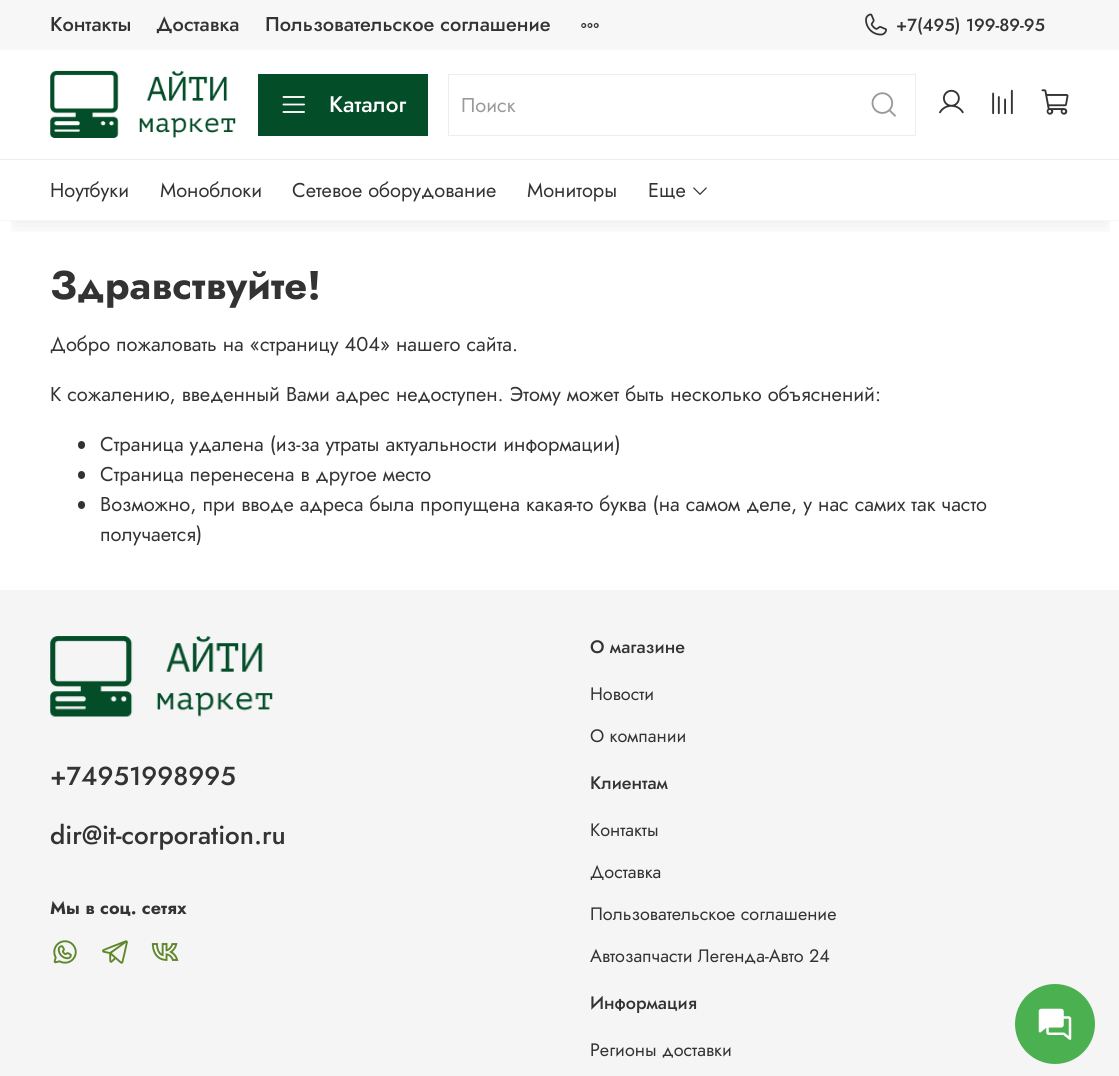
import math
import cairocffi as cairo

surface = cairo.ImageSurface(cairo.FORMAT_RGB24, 1119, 1076)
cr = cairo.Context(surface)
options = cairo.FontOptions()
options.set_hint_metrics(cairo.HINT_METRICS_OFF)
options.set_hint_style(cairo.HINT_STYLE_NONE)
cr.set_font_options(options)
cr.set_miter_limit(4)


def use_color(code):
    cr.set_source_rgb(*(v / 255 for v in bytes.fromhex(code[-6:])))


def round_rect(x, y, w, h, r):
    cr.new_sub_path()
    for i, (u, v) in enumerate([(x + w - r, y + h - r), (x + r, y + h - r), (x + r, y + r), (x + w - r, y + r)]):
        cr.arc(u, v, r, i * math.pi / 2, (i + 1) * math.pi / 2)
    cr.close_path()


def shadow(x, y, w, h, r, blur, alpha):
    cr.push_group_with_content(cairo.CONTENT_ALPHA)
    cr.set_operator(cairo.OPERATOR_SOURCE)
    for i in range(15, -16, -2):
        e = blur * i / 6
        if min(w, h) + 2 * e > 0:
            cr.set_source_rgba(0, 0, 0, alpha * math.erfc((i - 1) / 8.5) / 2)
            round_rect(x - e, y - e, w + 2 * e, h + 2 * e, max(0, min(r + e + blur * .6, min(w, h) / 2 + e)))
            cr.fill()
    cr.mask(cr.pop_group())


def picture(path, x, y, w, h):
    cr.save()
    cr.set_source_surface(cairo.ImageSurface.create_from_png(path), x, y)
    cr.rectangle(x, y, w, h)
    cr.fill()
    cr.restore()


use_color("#ffffff")
cr.paint()
use_color("#f7f7f7")
cr.rectangle(0, 0, 1119, 50)
cr.fill()
cr.select_font_face("Jost Medium")
cr.set_font_size(20)
use_color("#333333")
cr.move_to(50, 31)
cr.show_text("Контакты")
cr.move_to(156, 31)
cr.show_text("Доставка")
cr.move_to(265, 31)
cr.show_text("Пользовательское соглашение")
picture("img1.png", 581, 23, 18, 5)
picture("img2.png", 865, 13, 22, 23)
cr.set_font_size(17.5)
cr.move_to(896, 31)
cr.show_text("+7(495) 199-89-95")
use_color("#ededed")
cr.rectangle(0, 159, 1119, 1)
cr.fill()
picture("img3.png", 50, 70, 186, 68)
use_color("#034d28")
cr.rectangle(258, 74, 170, 62)
cr.fill()
picture("img4.png", 282, 96, 23, 17)
cr.set_font_size(22.5)
use_color("#ffffff")
cr.move_to(329, 112)
cr.show_text("Каталог")
use_color("#ededed")
cr.rectangle(448, 74, 468, 1)
cr.fill()
cr.rectangle(448, 135, 406, 1)
cr.fill()
cr.rectangle(448, 74, 1, 62)
cr.fill()
cr.select_font_face("Jost")
cr.set_font_size(20)
use_color("#999999")
cr.move_to(461, 112)
cr.show_text("Поиск")
use_color("#ededed")
cr.rectangle(915, 74, 1, 62)
cr.fill()
cr.rectangle(854, 135, 62, 1)
cr.fill()
picture("img5.png", 871, 92, 25, 25)
picture("img6.png", 939, 89, 25, 25)
picture("img7.png", 992, 89, 21, 26)
picture("img8.png", 1041, 89, 28, 26)
cr.save()
cr.rectangle(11, 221, 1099, 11)
cr.clip()
use_color("#000000")
shadow(13, 185, 1095, 36, 0, 12.5, 0.1)
cr.restore()
use_color("#f7f7f7")
cr.rectangle(0, 220, 1119, 1)
cr.fill()
use_color("#333333")
cr.move_to(50, 197)
cr.show_text("Ноутбуки")
cr.move_to(160, 197)
cr.show_text("Моноблоки")
cr.move_to(292, 197)
cr.show_text("Сетевое оборудование")
cr.move_to(527, 197)
cr.show_text("Мониторы")
cr.move_to(648, 197)
cr.show_text("Еще")
picture("img9.png", 693, 187, 14, 8)
cr.select_font_face("Jost", cairo.FONT_SLANT_NORMAL, cairo.FONT_WEIGHT_BOLD)
cr.set_font_size(40)
cr.move_to(50, 299)
cr.show_text("Здравствуйте!")
cr.select_font_face("Jost")
cr.set_font_size(20)
cr.move_to(50, 351)
cr.show_text("Добро пожаловать на «страницу 404» нашего сайта.")
cr.move_to(50, 401)
cr.show_text("К сожалению, введенный Вами адрес недоступен. Этому может быть несколько объяснений:")
round_rect(78, 441, 7, 8, 3.5)
cr.fill()
cr.move_to(100, 451)
cr.show_text("Страница удалена (из-за утраты актуальности информации)")
round_rect(78, 471, 7, 8, 3.5)
cr.fill()
cr.move_to(100, 481)
cr.show_text("Страница перенесена в другое место")
round_rect(78, 501, 7, 8, 3.5)
cr.fill()
cr.move_to(100, 511)
cr.show_text("Возможно, при вводе адреса была пропущена какая-то буква (на самом деле, у нас самих так часто")
cr.move_to(100, 541)
cr.show_text("получается)")
use_color("#f5f5f6")
cr.rectangle(0, 590, 1119, 486)
cr.fill()
picture("img10.png", 50, 636, 223, 81)
cr.select_font_face("Jost Medium")
cr.set_font_size(26)
use_color("#333333")
cr.move_to(50, 785)
cr.show_text("+74951998995")
cr.move_to(50, 844)
cr.show_text("dir@it-corporation.ru")
cr.select_font_face("Jost", cairo.FONT_SLANT_NORMAL, cairo.FONT_WEIGHT_BOLD)
cr.set_font_size(18)
cr.move_to(50, 914)
cr.show_text("Мы в соц. сетях")
picture("img11.png", 53, 940, 24, 24)
picture("img12.png", 102, 940, 26, 24)
picture("img13.png", 151, 943, 28, 18)
cr.select_font_face("Jost Medium")
cr.move_to(590, 653)
cr.show_text("О магазине")
cr.select_font_face("Jost")
cr.move_to(590, 700)
cr.show_text("Новости")
cr.move_to(590, 742)
cr.show_text("О компании")
cr.select_font_face("Jost Medium")
cr.move_to(590, 789)
cr.show_text("Клиентам")
cr.select_font_face("Jost")
cr.move_to(590, 836)
cr.show_text("Контакты")
cr.move_to(590, 878)
cr.show_text("Доставка")
cr.move_to(590, 920)
cr.show_text("Пользовательское соглашение")
cr.move_to(590, 962)
cr.show_text("Автозапчасти Легенда-Авто 24")
cr.select_font_face("Jost Medium")
cr.move_to(590, 1009)
cr.show_text("Информация")
cr.select_font_face("Jost")
cr.move_to(590, 1056)
cr.show_text("Регионы доставки")
use_color("#4bb04f")
cr.new_path()
cr.arc(1055, 1024, 40, 0, 2 * math.pi)
cr.fill()
picture("img14.png", 1038, 1008, 34, 32)
surface.write_to_png("result.png")
